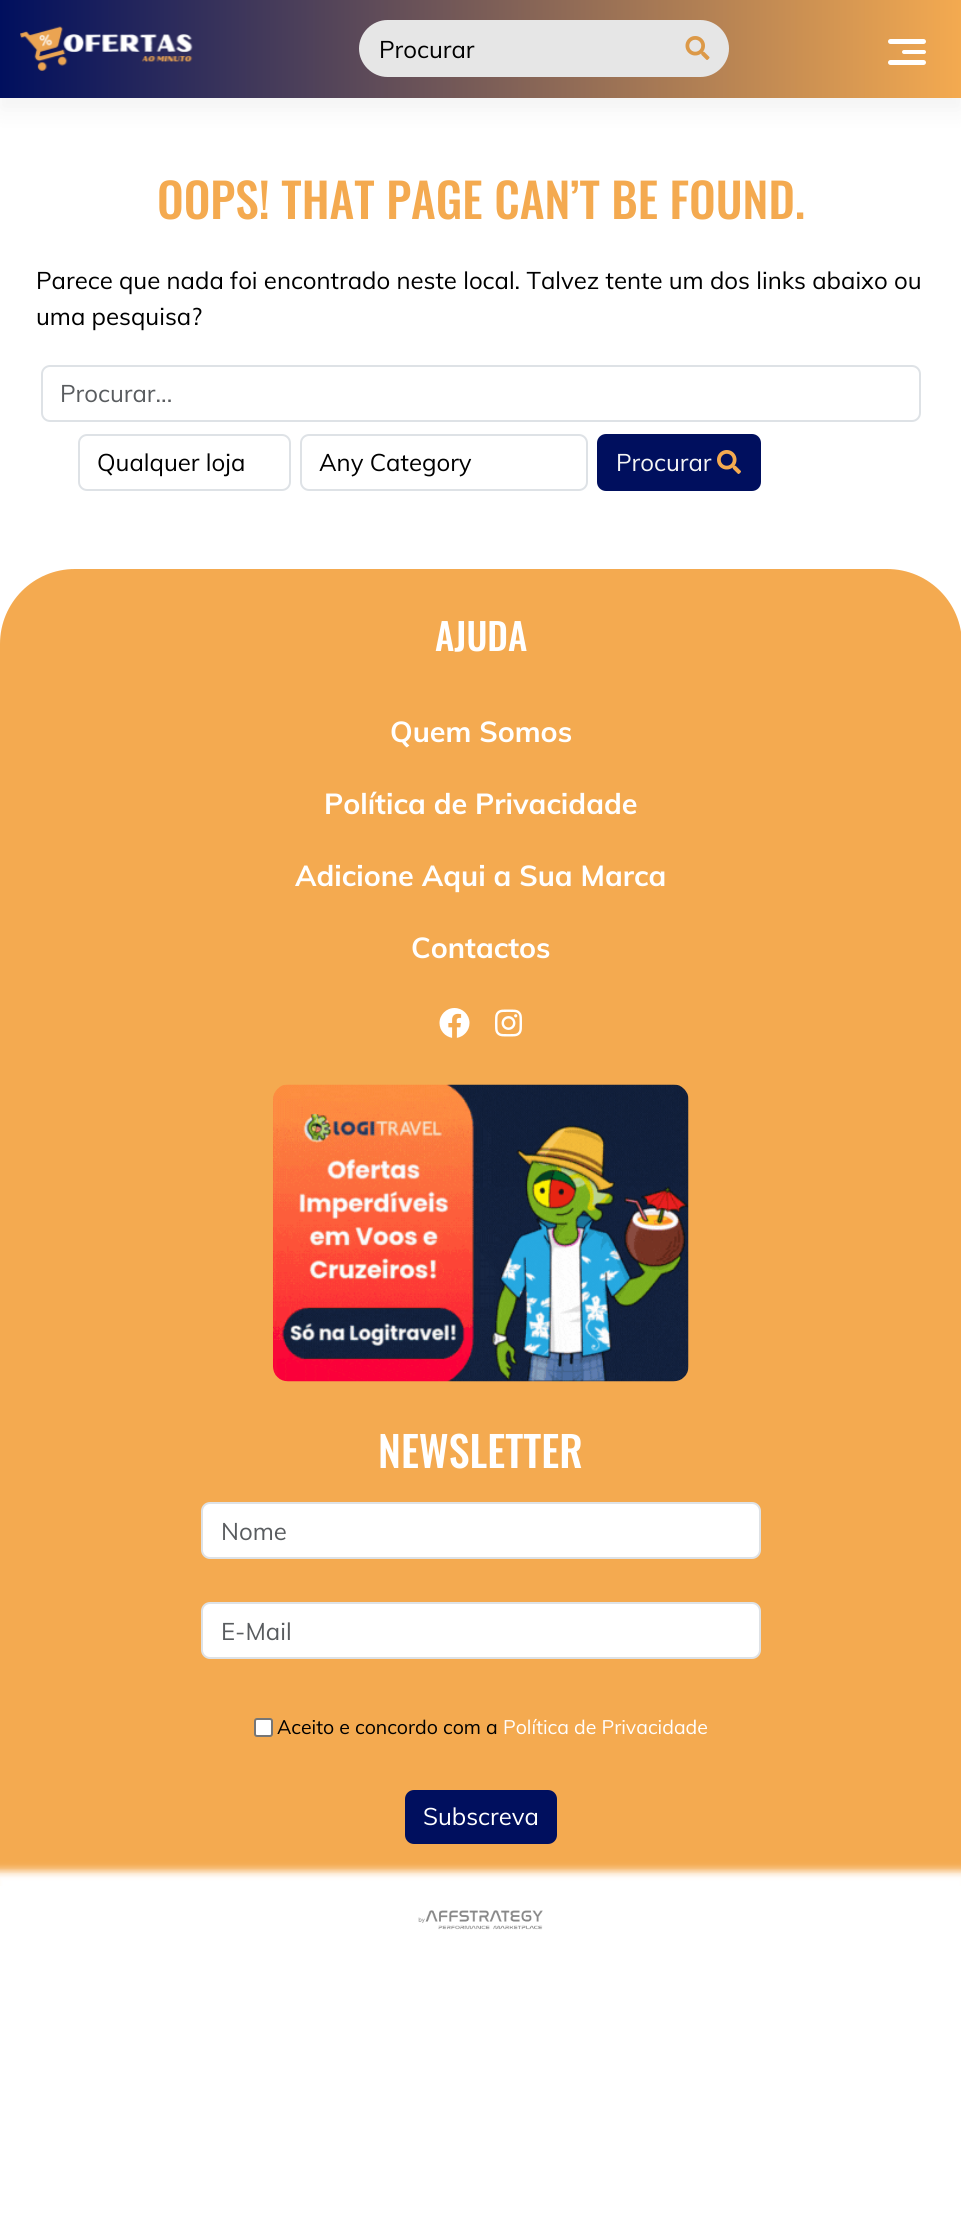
import math
import cairocffi as cairo

surface = cairo.ImageSurface(cairo.FORMAT_RGB24, 961, 2231)
cr = cairo.Context(surface)
options = cairo.FontOptions()
options.set_hint_metrics(cairo.HINT_METRICS_OFF)
options.set_hint_style(cairo.HINT_STYLE_NONE)
cr.set_font_options(options)
cr.set_miter_limit(4)


def use_color(code):
    cr.set_source_rgb(*(v / 255 for v in bytes.fromhex(code[-6:])))


def round_rect(x, y, w, h, r):
    cr.new_sub_path()
    for i, (u, v) in enumerate([(x + w - r, y + h - r), (x + r, y + h - r), (x + r, y + r), (x + w - r, y + r)]):
        cr.arc(u, v, r, i * math.pi / 2, (i + 1) * math.pi / 2)
    cr.close_path()


def shadow(x, y, w, h, r, blur, alpha):
    cr.push_group_with_content(cairo.CONTENT_ALPHA)
    cr.set_operator(cairo.OPERATOR_SOURCE)
    for i in range(15, -16, -2):
        e = blur * i / 6
        if min(w, h) + 2 * e > 0:
            cr.set_source_rgba(0, 0, 0, alpha * math.erfc((i - 1) / 8.5) / 2)
            round_rect(x - e, y - e, w + 2 * e, h + 2 * e, max(0, min(r + e + blur * .6, min(w, h) / 2 + e)))
            cr.fill()
    cr.mask(cr.pop_group())


def picture(path, x, y, w, h):
    cr.save()
    cr.set_source_surface(cairo.ImageSurface.create_from_png(path), x, y)
    cr.rectangle(x, y, w, h)
    cr.fill()
    cr.restore()


use_color("#ffffff")
cr.paint()
use_color("#000000")
shadow(0, 12, 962, 98, 0, 12, 0.05)
gradient = cairo.LinearGradient(0, 49, 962, 49)
gradient.add_color_stop_rgba(0, 0, 0.059, 0.369, 1)
gradient.add_color_stop_rgba(1, 0.957, 0.667, 0.314, 1)
cr.set_source(gradient)
cr.rectangle(0, 0, 961, 98)
cr.fill()
picture("img1.png", 20, 26, 173, 45)
use_color("#e6e6e6")
cr.new_path()
cr.move_to(387.5, 20)
cr.line_to(668, 20)
cr.line_to(668, 77)
cr.line_to(387.5, 77)
cr.curve_to(372, 77, 359, 64, 359, 48.5)
cr.curve_to(359, 33, 372, 20, 387.5, 20)
cr.close_path()
cr.fill()
cr.select_font_face("Muli")
cr.set_font_size(24)
use_color("#000000")
cr.move_to(379, 58)
cr.show_text("Procurar")
use_color("#e6e6e6")
cr.new_path()
cr.move_to(666, 20)
cr.line_to(700.5, 20)
cr.curve_to(716, 20, 729, 33, 729, 48.5)
cr.curve_to(729, 64, 716, 77, 700.5, 77)
cr.line_to(666, 77)
cr.close_path()
cr.fill()
picture("img2.png", 685, 36, 25, 24)
use_color("#ffffff")
round_rect(888, 60, 38, 5, 2.5)
cr.fill()
round_rect(902, 50, 24, 4, 2)
cr.fill()
round_rect(888, 39, 38, 5, 2.5)
cr.fill()
cr.select_font_face("Oswald Medium")
cr.set_font_size(47.4)
use_color("#f4aa50")
cr.move_to(157, 219)
cr.show_text("OOPS! THAT PAGE CAN’T BE FOUND.")
cr.select_font_face("Muli")
cr.set_font_size(24)
use_color("#000000")
cr.move_to(36, 289)
cr.show_text("Parece que nada foi encontrado neste local. Talvez tente um dos links abaixo ou")
cr.move_to(36, 325)
cr.show_text("uma pesquisa?")
round_rect(42, 366, 878, 55, 8)
use_color("#dee2e6")
cr.stroke()
use_color("#595c5f")
cr.move_to(60, 402)
cr.show_text("Procurar...")
round_rect(79, 435, 211, 55, 8)
use_color("#dee2e6")
cr.stroke()
use_color("#000000")
cr.move_to(97, 471)
cr.show_text("Qualquer loja")
round_rect(301, 435, 286, 55, 8)
use_color("#dee2e6")
cr.stroke()
use_color("#000000")
cr.move_to(319, 471)
cr.show_text("Any Category")
use_color("#000f5e")
round_rect(598, 435, 162, 55, 8)
cr.fill_preserve()
cr.stroke()
use_color("#f5f5f5")
cr.move_to(616, 471)
cr.show_text("Procurar")
picture("img3.png", 717, 450, 24, 24)
use_color("#f4aa50")
cr.new_path()
cr.move_to(75, 569)
cr.line_to(887, 569)
cr.curve_to(928.5, 569, 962, 602.5, 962, 644)
cr.line_to(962, 1886)
cr.line_to(0, 1886)
cr.line_to(0, 644)
cr.curve_to(0, 602.5, 33.5, 569, 75, 569)
cr.close_path()
cr.fill()
cr.select_font_face("Oswald Medium")
cr.set_font_size(37)
use_color("#ffffff")
cr.move_to(435, 651)
cr.show_text("AJUDA")
cr.select_font_face("Muli", cairo.FONT_SLANT_NORMAL, cairo.FONT_WEIGHT_BOLD)
cr.set_font_size(28.75)
cr.move_to(390, 742)
cr.show_text("Quem Somos")
cr.move_to(324, 814)
cr.show_text("Política de Privacidade")
cr.move_to(295, 886)
cr.show_text("Adicione Aqui a Sua Marca")
cr.move_to(411, 958)
cr.show_text("Contactos")
picture("img4.png", 439, 1008, 31, 30)
picture("img5.png", 495, 1009, 27, 28)
picture("img6.png", 273, 1084, 416, 298)
cr.select_font_face("Oswald Medium")
cr.set_font_size(42)
cr.move_to(378, 1468)
cr.show_text("NEWSLETTER")
round_rect(202, 1503, 558, 55, 8)
cr.fill_preserve()
use_color("#dee2e6")
cr.stroke()
cr.select_font_face("Muli")
cr.set_font_size(24)
use_color("#595c5f")
cr.move_to(221, 1540)
cr.show_text("Nome")
use_color("#ffffff")
round_rect(202, 1603, 558, 55, 8)
cr.fill_preserve()
use_color("#dee2e6")
cr.stroke()
use_color("#595c5f")
cr.move_to(221, 1640)
cr.show_text("E-Mail")
use_color("#ffffff")
round_rect(255, 1719, 17, 17, 2)
cr.fill_preserve()
use_color("#767676")
cr.stroke()
cr.set_font_size(19.5)
use_color("#000000")
cr.move_to(277, 1734)
cr.show_text("Aceito e concordo com a")
use_color("#ffffff")
cr.move_to(503, 1734)
cr.show_text("Política de Privacidade")
use_color("#000f5e")
round_rect(405, 1790, 152, 54, 9)
cr.fill()
cr.set_font_size(24)
use_color("#ffffff")
cr.move_to(423, 1825)
cr.show_text("Subscreva")
cr.save()
cr.set_fill_rule(cairo.FILL_RULE_EVEN_ODD)
cr.new_path()
cr.move_to(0, 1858)
cr.line_to(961, 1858)
cr.line_to(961, 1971)
cr.line_to(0, 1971)
cr.close_path()
cr.move_to(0, 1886)
cr.line_to(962, 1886)
cr.line_to(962, 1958)
cr.line_to(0, 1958)
cr.close_path()
cr.clip()
use_color("#ffffff")
shadow(-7, 1871, 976, 87, 0, 4, 1)
cr.restore()
picture("img7.png", 418, 1910, 125, 20)
surface.write_to_png("result.png")
